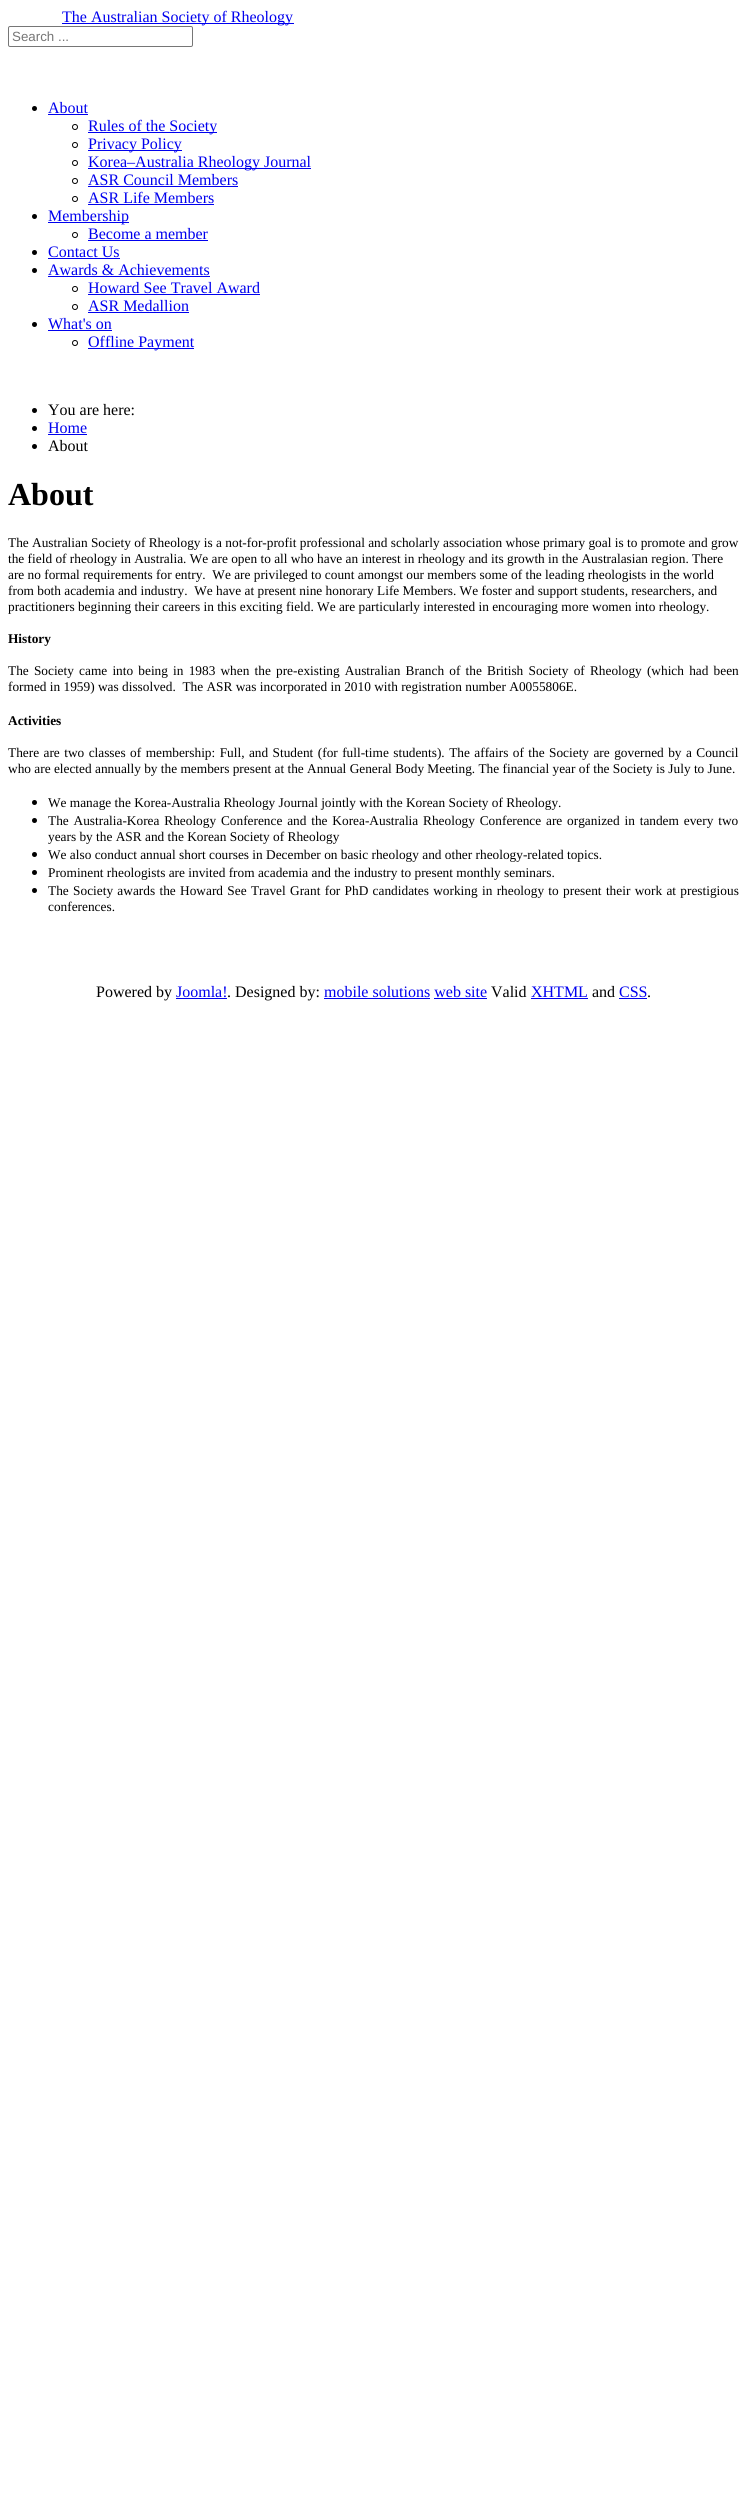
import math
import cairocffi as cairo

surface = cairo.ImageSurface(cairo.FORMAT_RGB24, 747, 2509)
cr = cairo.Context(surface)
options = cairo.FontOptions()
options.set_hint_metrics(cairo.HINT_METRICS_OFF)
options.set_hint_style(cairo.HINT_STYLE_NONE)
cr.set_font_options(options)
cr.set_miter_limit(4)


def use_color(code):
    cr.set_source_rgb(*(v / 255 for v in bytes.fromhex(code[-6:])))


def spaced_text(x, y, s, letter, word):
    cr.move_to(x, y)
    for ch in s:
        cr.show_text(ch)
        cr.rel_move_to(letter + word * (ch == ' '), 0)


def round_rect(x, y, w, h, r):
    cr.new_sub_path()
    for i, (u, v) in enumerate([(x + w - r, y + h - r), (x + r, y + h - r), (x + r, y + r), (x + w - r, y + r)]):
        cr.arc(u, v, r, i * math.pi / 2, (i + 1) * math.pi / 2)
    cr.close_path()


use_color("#ffffff")
cr.paint()
use_color("#0000ee")
cr.rectangle(62, 23, 232, 1)
cr.fill()
cr.select_font_face("Liberation Serif")
cr.set_font_size(16)
cr.move_to(62, 22)
cr.show_text("The Australian Society of Rheology")
round_rect(8.5, 26.5, 184, 20, 1.5)
use_color("#767676")
cr.set_line_width(1)
cr.stroke()
cr.select_font_face("Liberation Sans")
cr.set_font_size(13.33)
use_color("#757575")
cr.move_to(12, 41)
cr.show_text("Search ...")
use_color("#000000")
cr.new_path()
cr.arc(34.5, 108.5, 2.5, 0, 2 * math.pi)
cr.fill()
cr.select_font_face("Liberation Serif")
cr.set_font_size(16)
use_color("#0000ee")
cr.move_to(48, 113)
cr.show_text("About")
cr.rectangle(48, 114, 40, 1)
cr.fill()
cr.arc(75, 127, 2.5, 0, 2 * math.pi)
use_color("#000000")
cr.stroke()
use_color("#0000ee")
cr.rectangle(88, 132, 129, 1)
cr.fill()
cr.move_to(88, 131)
cr.show_text("Rules of the Society")
cr.new_path()
cr.arc(75, 145, 2.5, 0, 2 * math.pi)
use_color("#000000")
cr.stroke()
use_color("#0000ee")
cr.rectangle(88, 150, 94, 1)
cr.fill()
cr.move_to(88, 149)
cr.show_text("Privacy Policy")
cr.new_path()
cr.arc(75, 163, 2.5, 0, 2 * math.pi)
use_color("#000000")
cr.stroke()
use_color("#0000ee")
cr.rectangle(88, 168, 223, 1)
cr.fill()
cr.move_to(88, 167)
cr.show_text("Korea–Australia Rheology Journal")
cr.new_path()
cr.arc(75, 181, 2.5, 0, 2 * math.pi)
use_color("#000000")
cr.stroke()
use_color("#0000ee")
cr.move_to(88, 185)
cr.show_text("ASR Council Members")
cr.rectangle(88, 186, 150, 1)
cr.fill()
cr.arc(75, 199, 2.5, 0, 2 * math.pi)
use_color("#000000")
cr.stroke()
use_color("#0000ee")
cr.move_to(88, 203)
cr.show_text("ASR Life Members")
cr.rectangle(88, 204, 126, 1)
cr.fill()
use_color("#000000")
cr.arc(34.5, 216.5, 2.5, 0, 2 * math.pi)
cr.fill()
use_color("#0000ee")
cr.rectangle(48, 222, 81, 1)
cr.fill()
cr.move_to(48, 221)
cr.show_text("Membership")
cr.new_path()
cr.arc(75, 235, 2.5, 0, 2 * math.pi)
use_color("#000000")
cr.stroke()
use_color("#0000ee")
cr.move_to(88, 239)
cr.show_text("Become a member")
cr.rectangle(88, 240, 120, 1)
cr.fill()
use_color("#000000")
cr.arc(34.5, 252.5, 2.5, 0, 2 * math.pi)
cr.fill()
use_color("#0000ee")
cr.move_to(48, 257)
cr.show_text("Contact Us")
cr.rectangle(48, 258, 72, 1)
cr.fill()
use_color("#000000")
cr.arc(34.5, 270.5, 2.5, 0, 2 * math.pi)
cr.fill()
use_color("#0000ee")
cr.move_to(48, 275)
cr.show_text("Awards & Achievements")
cr.rectangle(48, 276, 162, 1)
cr.fill()
cr.arc(75, 289, 2.5, 0, 2 * math.pi)
use_color("#000000")
cr.stroke()
use_color("#0000ee")
cr.move_to(88, 293)
cr.show_text("Howard See Travel Award")
cr.rectangle(88, 294, 172, 1)
cr.fill()
cr.arc(75, 307, 2.5, 0, 2 * math.pi)
use_color("#000000")
cr.stroke()
use_color("#0000ee")
cr.move_to(88, 311)
cr.show_text("ASR Medallion")
cr.rectangle(88, 312, 101, 1)
cr.fill()
use_color("#000000")
cr.arc(34.5, 324.5, 2.5, 0, 2 * math.pi)
cr.fill()
use_color("#0000ee")
cr.move_to(48, 329)
cr.show_text("What's on")
cr.rectangle(48, 330, 64, 1)
cr.fill()
cr.arc(75, 343, 2.5, 0, 2 * math.pi)
use_color("#000000")
cr.stroke()
use_color("#0000ee")
cr.rectangle(88, 348, 106, 1)
cr.fill()
cr.move_to(88, 347)
cr.show_text("Offline Payment")
use_color("#000000")
cr.new_path()
cr.arc(34.5, 410.5, 2.5, 0, 2 * math.pi)
cr.fill()
cr.move_to(48, 415)
cr.show_text("You are here:")
cr.new_path()
cr.arc(34.5, 428.5, 2.5, 0, 2 * math.pi)
cr.fill()
use_color("#0000ee")
cr.move_to(48, 433)
cr.show_text("Home")
cr.rectangle(48, 434, 39, 1)
cr.fill()
use_color("#000000")
cr.arc(34.5, 446.5, 2.5, 0, 2 * math.pi)
cr.fill()
cr.move_to(48, 451)
cr.show_text("About")
cr.select_font_face("Liberation Serif", cairo.FONT_SLANT_NORMAL, cairo.FONT_WEIGHT_BOLD)
cr.set_font_size(32)
cr.move_to(8, 505)
cr.show_text("About")
cr.select_font_face("Liberation Serif")
cr.set_font_size(13.33)
cr.move_to(8, 547)
cr.show_text("The Australian Society of Rheology is a not-for-profit professional and scholarly association whose primary goal is to promote and grow")
cr.move_to(8, 563)
cr.show_text("the field of rheology in Australia. We are open to all who have an interest in rheology and its growth in the Australasian region. There")
cr.move_to(8, 579)
cr.show_text("are no formal requirements for entry.  We are privileged to count amongst our members some of the leading rheologists in the world")
cr.move_to(8, 595)
cr.show_text("from both academia and industry.  We have at present nine honorary Life Members. We foster and support students, researchers, and")
cr.move_to(8, 611)
cr.show_text("practitioners beginning their careers in this exciting field. We are particularly interested in encouraging more women into rheology.")
cr.select_font_face("Liberation Serif", cairo.FONT_SLANT_NORMAL, cairo.FONT_WEIGHT_BOLD)
cr.move_to(8, 643)
cr.show_text("History")
cr.select_font_face("Liberation Serif")
spaced_text(8, 675, "The Society came into being in 1983 when the pre-existing Australian Branch of the British Society of Rheology (which had been", 0, 1.85)
cr.move_to(8, 691)
cr.show_text("formed in 1959) was dissolved.  The ASR was incorporated in 2010 with registration number A0055806E.")
cr.select_font_face("Liberation Serif", cairo.FONT_SLANT_NORMAL, cairo.FONT_WEIGHT_BOLD)
cr.move_to(8, 725)
cr.show_text("Activities")
cr.select_font_face("Liberation Serif")
spaced_text(8, 757, "There are two classes of membership: Full, and Student (for full-time students). The affairs of the Society are governed by a Council", 0, 1.1)
cr.move_to(8, 773)
cr.show_text("who are elected annually by the members present at the Annual General Body Meeting. The financial year of the Society is July to June.")
cr.new_path()
cr.arc(34.5, 802.5, 2.5, 0, 2 * math.pi)
cr.fill()
cr.move_to(48, 807)
cr.show_text("We manage the Korea-Australia Rheology Journal jointly with the Korean Society of Rheology.")
cr.new_path()
cr.arc(34.5, 820.5, 2.5, 0, 2 * math.pi)
cr.fill()
spaced_text(48, 825, "The Australia-Korea Rheology Conference and the Korea-Australia Rheology Conference are organized in tandem every two", 0, 1.5)
cr.move_to(48, 841)
cr.show_text("years by the ASR and the Korean Society of Rheology")
cr.new_path()
cr.arc(34.5, 854.5, 2.5, 0, 2 * math.pi)
cr.fill()
cr.move_to(48, 859)
cr.show_text("We also conduct annual short courses in December on basic rheology and other rheology-related topics.")
cr.new_path()
cr.arc(34.5, 872.5, 2.5, 0, 2 * math.pi)
cr.fill()
cr.move_to(48, 877)
cr.show_text("Prominent rheologists are invited from academia and the industry to present monthly seminars.")
cr.new_path()
cr.arc(34.5, 890.5, 2.5, 0, 2 * math.pi)
cr.fill()
spaced_text(48, 895, "The Society awards the Howard See Travel Grant for PhD candidates working in rheology to present their work at prestigious", 0, 1)
cr.move_to(48, 911)
cr.show_text("conferences.")
cr.set_font_size(16)
cr.move_to(96, 997)
cr.show_text("Powered by")
use_color("#0000ee")
cr.move_to(176, 997)
cr.show_text("Joomla!")
cr.rectangle(176, 998, 51, 1)
cr.fill()
use_color("#000000")
cr.move_to(227, 997)
cr.show_text(". Designed by:")
use_color("#0000ee")
cr.move_to(324, 997)
cr.show_text("mobile solutions web site")
cr.rectangle(324, 998, 106, 1)
cr.fill()
use_color("#000000")
cr.move_to(491, 997)
cr.show_text("Valid")
use_color("#0000ee")
cr.move_to(531, 997)
cr.show_text("XHTML")
cr.rectangle(531, 998, 57, 1)
cr.fill()
use_color("#000000")
cr.move_to(592, 997)
cr.show_text("and")
use_color("#0000ee")
cr.move_to(619, 997)
cr.show_text("CSS")
cr.rectangle(619, 998, 28, 1)
cr.fill()
use_color("#000000")
cr.move_to(647, 997)
cr.show_text(".")
use_color("#0000ee")
cr.rectangle(434, 998, 53, 1)
cr.fill()
surface.write_to_png("result.png")
